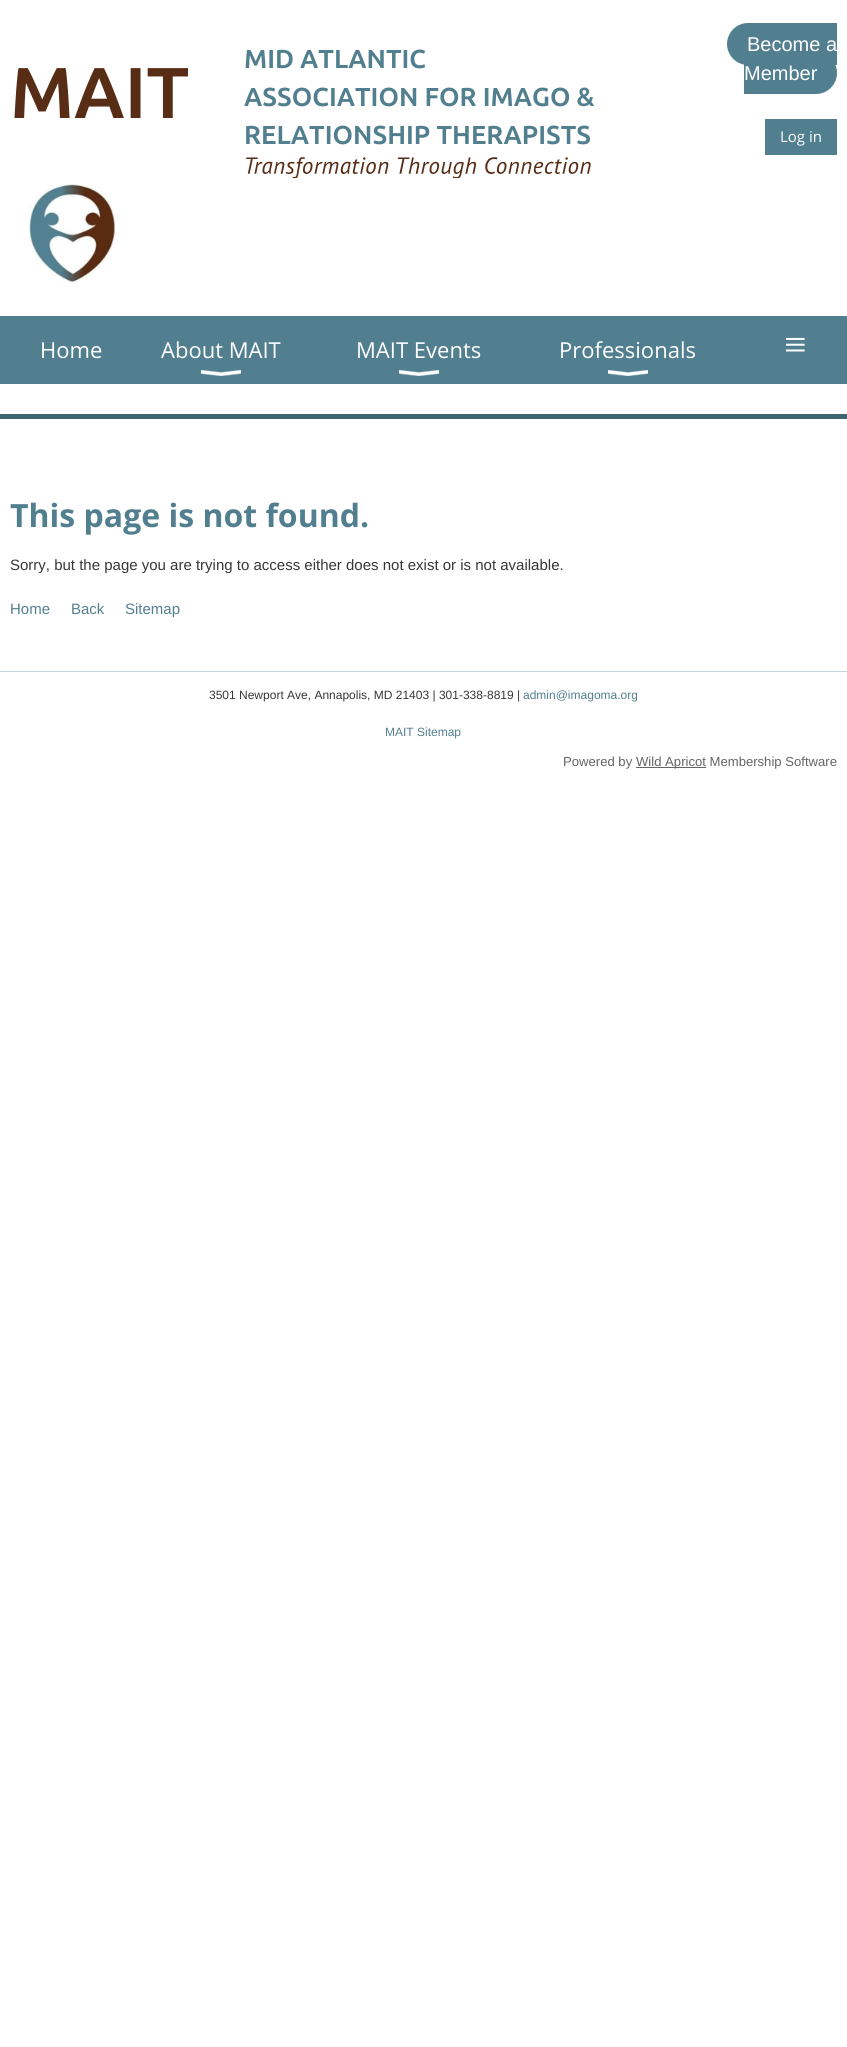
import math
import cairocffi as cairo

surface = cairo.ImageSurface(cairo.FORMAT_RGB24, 847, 2047)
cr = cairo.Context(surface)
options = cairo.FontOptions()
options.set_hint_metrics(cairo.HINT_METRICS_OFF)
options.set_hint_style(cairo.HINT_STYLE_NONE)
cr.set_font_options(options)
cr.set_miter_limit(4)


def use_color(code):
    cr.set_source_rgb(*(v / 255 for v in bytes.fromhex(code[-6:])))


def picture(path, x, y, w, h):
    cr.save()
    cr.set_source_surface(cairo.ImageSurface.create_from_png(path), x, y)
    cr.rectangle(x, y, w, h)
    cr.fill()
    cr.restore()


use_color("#ffffff")
cr.paint()
cr.select_font_face("Ubuntu", cairo.FONT_SLANT_NORMAL, cairo.FONT_WEIGHT_BOLD)
cr.set_font_size(72)
use_color("#582d15")
cr.move_to(10, 118)
cr.show_text("MAIT")
picture("img1.png", 28, 184, 93, 100)
cr.set_font_size(26)
use_color("#527f8f")
cr.move_to(244, 68)
cr.show_text("MID ATLANTIC")
cr.move_to(244, 106)
cr.show_text("ASSOCIATION FOR IMAGO &")
cr.move_to(244, 144)
cr.show_text("RELATIONSHIP THERAPISTS")
picture("img2.png", 246, 157, 346, 23)
cr.new_path()
cr.move_to(748, 23)
cr.line_to(837, 23)
cr.line_to(837, 65)
cr.line_to(748, 65)
cr.curve_to(736.5, 65, 727, 55.5, 727, 44)
cr.curve_to(727, 32.5, 736.5, 23, 748, 23)
cr.close_path()
cr.fill()
cr.select_font_face("Liberation Sans")
cr.set_font_size(20)
use_color("#ffffff")
cr.move_to(747, 51)
cr.show_text("Become a")
use_color("#527f8f")
cr.new_path()
cr.move_to(744, 52)
cr.line_to(816, 52)
cr.curve_to(827.5, 52, 837, 61.5, 837, 73)
cr.curve_to(837, 84.5, 827.5, 94, 816, 94)
cr.line_to(744, 94)
cr.close_path()
cr.fill()
use_color("#ffffff")
cr.move_to(744, 80)
cr.show_text("Member")
use_color("#527f8f")
cr.rectangle(765, 119, 72, 36)
cr.fill()
cr.select_font_face("Open Sans")
cr.set_font_size(15)
use_color("#ffffff")
cr.move_to(780, 142)
cr.show_text("Log in")
use_color("#527f8f")
cr.rectangle(0, 316, 847, 68)
cr.fill()
cr.set_font_size(22)
use_color("#ffffff")
cr.move_to(40, 358)
cr.show_text("Home")
cr.move_to(161, 358)
cr.show_text("About MAIT")
picture("img3.png", 201, 370, 40, 6)
cr.move_to(356, 358)
cr.show_text("MAIT Events")
picture("img3.png", 399, 370, 40, 6)
cr.move_to(559, 358)
cr.show_text("Professionals")
picture("img3.png", 608, 370, 40, 6)
cr.select_font_face("Liberation Serif")
cr.set_font_size(40)
cr.move_to(784, 358)
cr.show_text("≡")
use_color("#406471")
cr.rectangle(0, 414, 847, 5)
cr.fill()
cr.select_font_face("Open Sans", cairo.FONT_SLANT_NORMAL, cairo.FONT_WEIGHT_BOLD)
cr.set_font_size(32)
use_color("#527f8f")
cr.move_to(10, 527)
cr.show_text("This page is not found.")
cr.select_font_face("Liberation Sans")
cr.set_font_size(15)
use_color("#373737")
cr.move_to(10, 570)
cr.show_text("Sorry, but the page you are trying to access either does not exist or is not available.")
use_color("#527f8f")
cr.move_to(10, 614)
cr.show_text("Home")
cr.move_to(71, 614)
cr.show_text("Back")
cr.move_to(125, 614)
cr.show_text("Sitemap")
use_color("#c2d6dd")
cr.rectangle(0, 671, 847, 1)
cr.fill()
cr.set_font_size(12)
use_color("#373737")
cr.move_to(209, 699)
cr.show_text("3501 Newport Ave, Annapolis, MD 21403 | 301-338-8819 |")
use_color("#527f8f")
cr.move_to(523, 699)
cr.show_text("admin@imagoma.org")
cr.move_to(385, 736)
cr.show_text("MAIT Sitemap")
cr.set_font_size(13.1)
use_color("#646464")
cr.move_to(563, 766)
cr.show_text("Powered by")
cr.rectangle(636, 767, 70, 1)
cr.fill()
cr.move_to(636, 766)
cr.show_text("Wild Apricot Membership Software")
surface.write_to_png("result.png")
